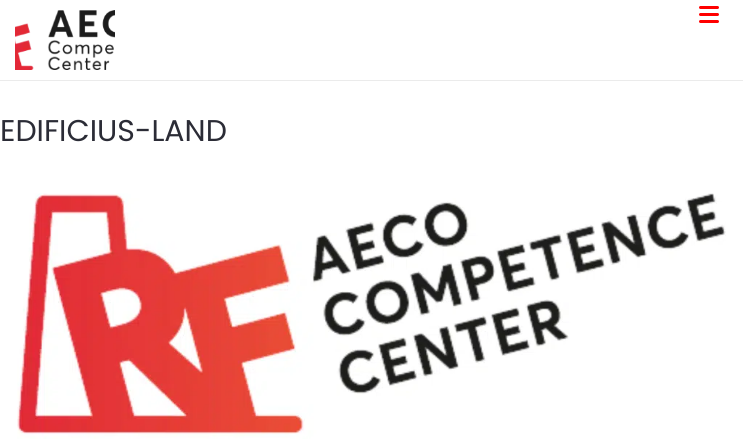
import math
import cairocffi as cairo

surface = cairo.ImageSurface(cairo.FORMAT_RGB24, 743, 440)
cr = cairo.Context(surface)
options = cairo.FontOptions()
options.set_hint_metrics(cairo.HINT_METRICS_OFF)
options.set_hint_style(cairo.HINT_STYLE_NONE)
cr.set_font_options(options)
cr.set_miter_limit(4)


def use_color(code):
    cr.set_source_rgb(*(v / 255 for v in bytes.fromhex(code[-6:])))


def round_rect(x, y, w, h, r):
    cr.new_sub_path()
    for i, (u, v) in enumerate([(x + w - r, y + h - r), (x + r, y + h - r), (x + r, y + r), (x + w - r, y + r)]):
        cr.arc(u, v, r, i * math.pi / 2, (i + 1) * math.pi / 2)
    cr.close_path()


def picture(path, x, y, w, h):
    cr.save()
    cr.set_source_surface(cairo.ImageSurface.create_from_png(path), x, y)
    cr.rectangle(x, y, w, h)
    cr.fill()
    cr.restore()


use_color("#ffffff")
cr.paint()
use_color("#ebebeb")
cr.rectangle(0, 80, 743, 1)
cr.fill()
picture("img1.png", 15, 10, 100, 60)
use_color("#ff0000")
round_rect(699, 13, 20, 3, 1.5)
cr.fill()
round_rect(699, 6, 20, 3, 1.5)
cr.fill()
round_rect(699, 20, 20, 3, 1.5)
cr.fill()
cr.select_font_face("Poppins")
cr.set_font_size(30)
use_color("#2b2c36")
cr.move_to(0, 141)
cr.show_text("EDIFICIUS-LAND")
picture("img2.png", 17, 193, 709, 246)
surface.write_to_png("result.png")
